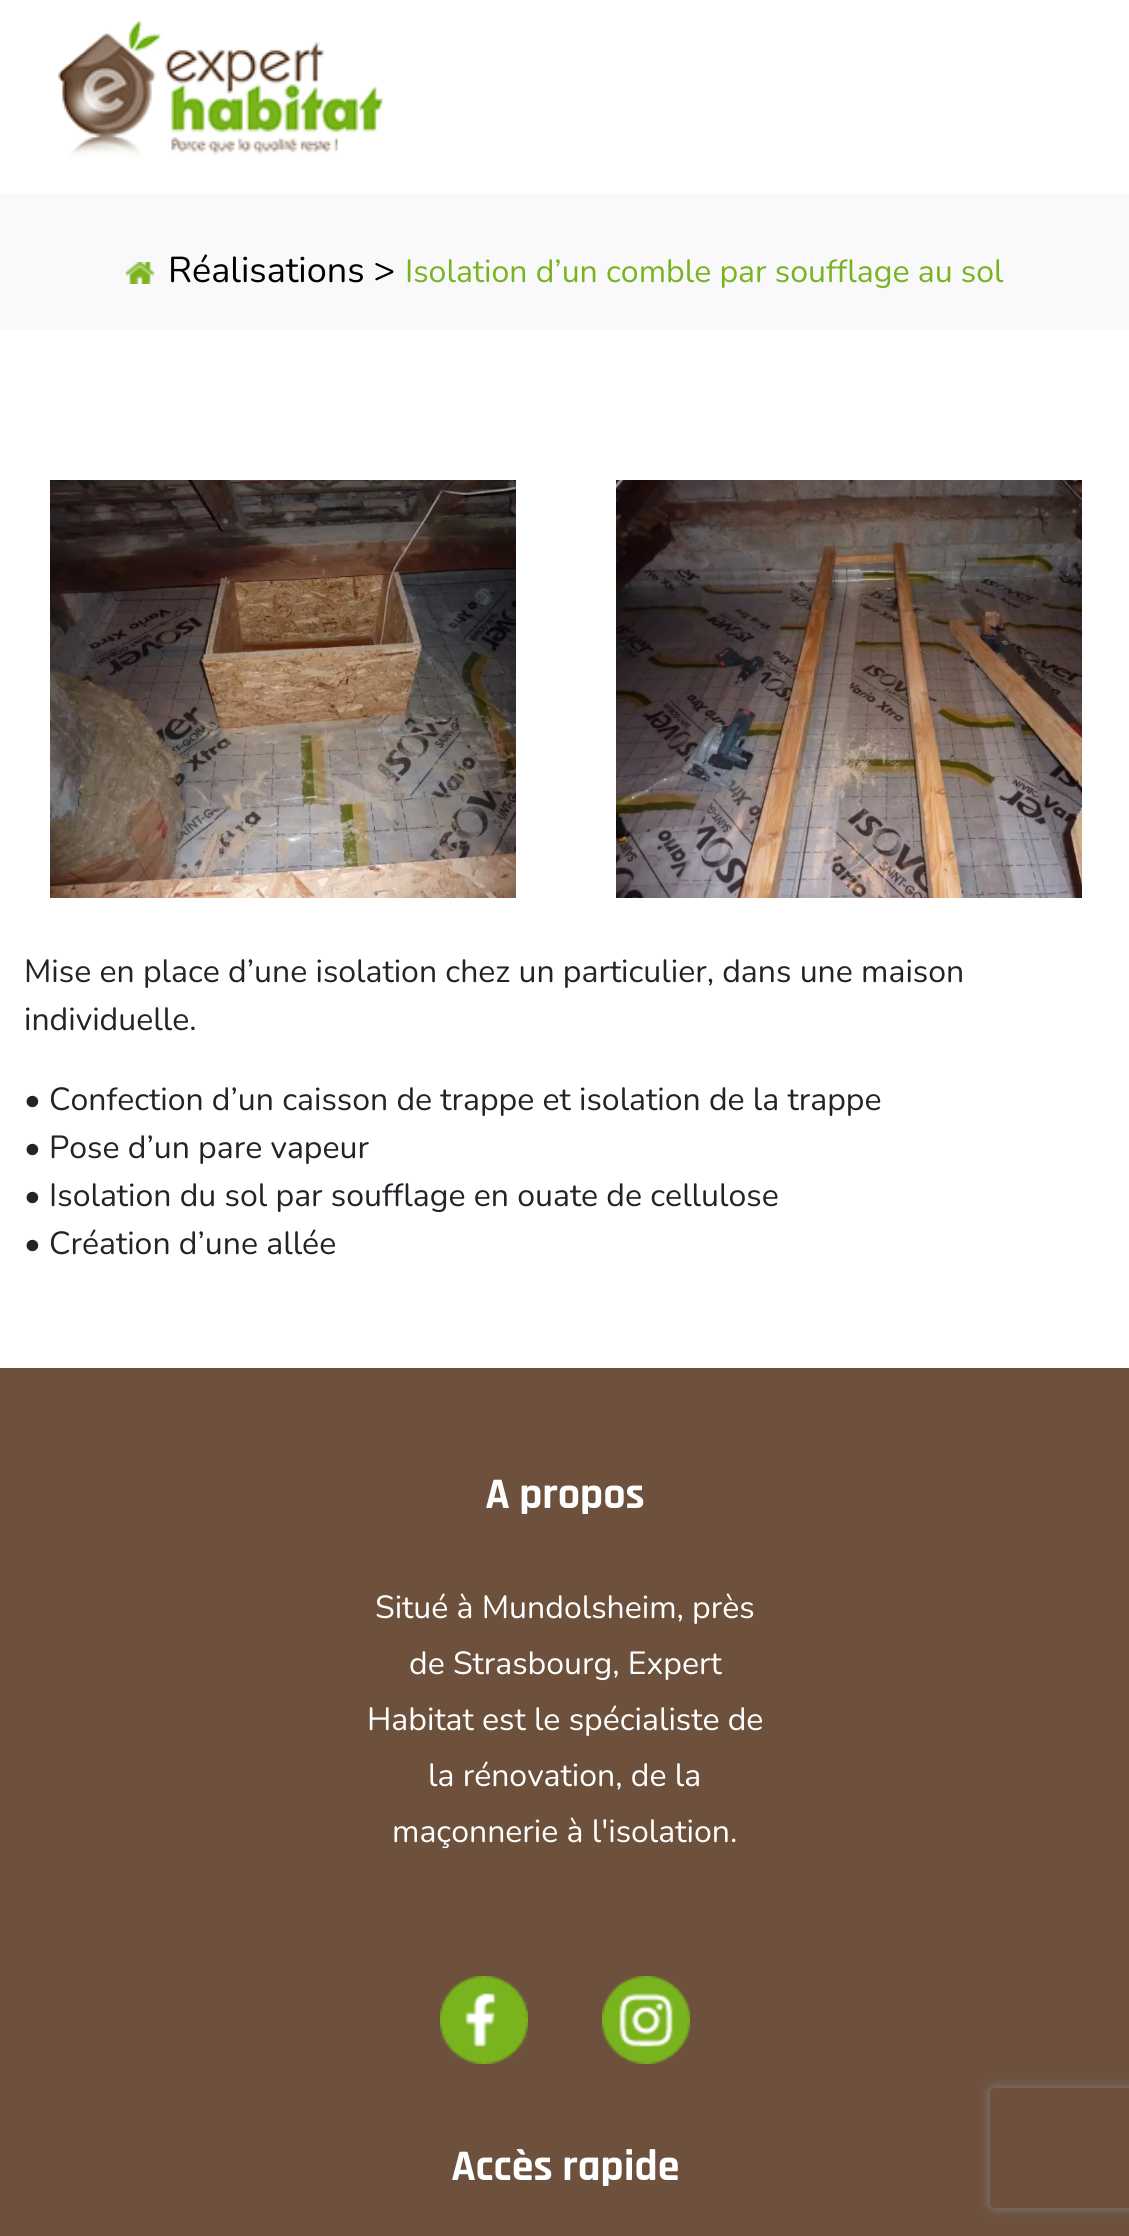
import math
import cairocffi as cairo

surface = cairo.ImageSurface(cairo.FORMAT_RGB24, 1129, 2236)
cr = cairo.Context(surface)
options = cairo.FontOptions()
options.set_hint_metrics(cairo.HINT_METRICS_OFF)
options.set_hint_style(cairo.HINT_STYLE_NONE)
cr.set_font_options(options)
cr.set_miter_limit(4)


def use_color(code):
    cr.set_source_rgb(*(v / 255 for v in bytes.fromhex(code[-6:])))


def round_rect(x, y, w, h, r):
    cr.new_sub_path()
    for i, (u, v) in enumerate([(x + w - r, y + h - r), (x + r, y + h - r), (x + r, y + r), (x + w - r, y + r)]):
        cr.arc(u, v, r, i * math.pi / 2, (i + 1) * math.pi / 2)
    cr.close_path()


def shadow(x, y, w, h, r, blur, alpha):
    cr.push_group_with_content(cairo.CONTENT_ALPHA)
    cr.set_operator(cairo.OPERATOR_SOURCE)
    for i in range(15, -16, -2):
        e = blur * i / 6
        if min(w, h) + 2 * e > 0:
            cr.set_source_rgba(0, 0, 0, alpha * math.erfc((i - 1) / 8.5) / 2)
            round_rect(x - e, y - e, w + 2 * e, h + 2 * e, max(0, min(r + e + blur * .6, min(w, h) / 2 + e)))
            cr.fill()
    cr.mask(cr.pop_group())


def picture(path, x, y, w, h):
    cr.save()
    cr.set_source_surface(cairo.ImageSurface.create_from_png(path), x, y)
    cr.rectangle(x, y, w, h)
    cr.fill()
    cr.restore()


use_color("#ffffff")
cr.paint()
picture("img1.png", 57, 20, 327, 137)
use_color("#f9f8fb")
cr.rectangle(0, 194, 1129, 136)
cr.fill()
picture("img2.png", 126, 262, 28, 22)
cr.select_font_face("Nunito")
cr.set_font_size(36)
use_color("#000000")
cr.move_to(168, 282)
cr.show_text("Réalisations >")
cr.set_font_size(32)
use_color("#79b41e")
cr.move_to(405, 282)
cr.show_text("Isolation d’un comble par soufflage au sol")
picture("img3.png", 50, 480, 466, 418)
picture("img4.png", 616, 480, 466, 418)
use_color("#212529")
cr.move_to(24, 982)
cr.show_text("Mise en place d’une isolation chez un particulier, dans une maison")
cr.move_to(24, 1030)
cr.show_text("individuelle.")
cr.move_to(24, 1110)
cr.show_text("• Confection d’un caisson de trappe et isolation de la trappe")
cr.move_to(24, 1158)
cr.show_text("• Pose d’un pare vapeur")
cr.move_to(24, 1206)
cr.show_text("• Isolation du sol par soufflage en ouate de cellulose")
cr.move_to(24, 1254)
cr.show_text("• Création d’une allée")
use_color("#6d513d")
cr.rectangle(0, 1368, 1129, 868)
cr.fill()
cr.select_font_face("Rajdhani", cairo.FONT_SLANT_NORMAL, cairo.FONT_WEIGHT_BOLD)
cr.set_font_size(44)
use_color("#ffffff")
cr.move_to(485, 1508)
cr.show_text("A propos")
cr.select_font_face("Nunito")
cr.set_font_size(32)
cr.move_to(375, 1618)
cr.show_text("Situé à Mundolsheim, près")
cr.move_to(409, 1674)
cr.show_text("de Strasbourg, Expert")
cr.move_to(367, 1730)
cr.show_text("Habitat est le spécialiste de")
cr.move_to(428, 1786)
cr.show_text("la rénovation, de la")
cr.move_to(392, 1842)
cr.show_text("maçonnerie à l'isolation.")
picture("img5.png", 440, 1976, 88, 88)
picture("img6.png", 602, 1976, 88, 88)
cr.select_font_face("Rajdhani", cairo.FONT_SLANT_NORMAL, cairo.FONT_WEIGHT_BOLD)
cr.set_font_size(44)
cr.move_to(451, 2180)
cr.show_text("Accès rapide")
cr.save()
cr.set_fill_rule(cairo.FILL_RULE_EVEN_ODD)
cr.new_path()
cr.move_to(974, 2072)
cr.line_to(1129, 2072)
cr.line_to(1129, 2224)
cr.line_to(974, 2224)
cr.close_path()
cr.move_to(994, 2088)
cr.line_to(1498, 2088)
cr.curve_to(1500, 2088, 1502, 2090, 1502, 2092)
cr.line_to(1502, 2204)
cr.curve_to(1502, 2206, 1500, 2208, 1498, 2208)
cr.line_to(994, 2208)
cr.curve_to(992, 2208, 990, 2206, 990, 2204)
cr.line_to(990, 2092)
cr.curve_to(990, 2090, 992, 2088, 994, 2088)
cr.close_path()
cr.clip()
use_color("#808080")
shadow(990, 2088, 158, 120, 4, 5, 1)
cr.restore()
surface.write_to_png("result.png")
